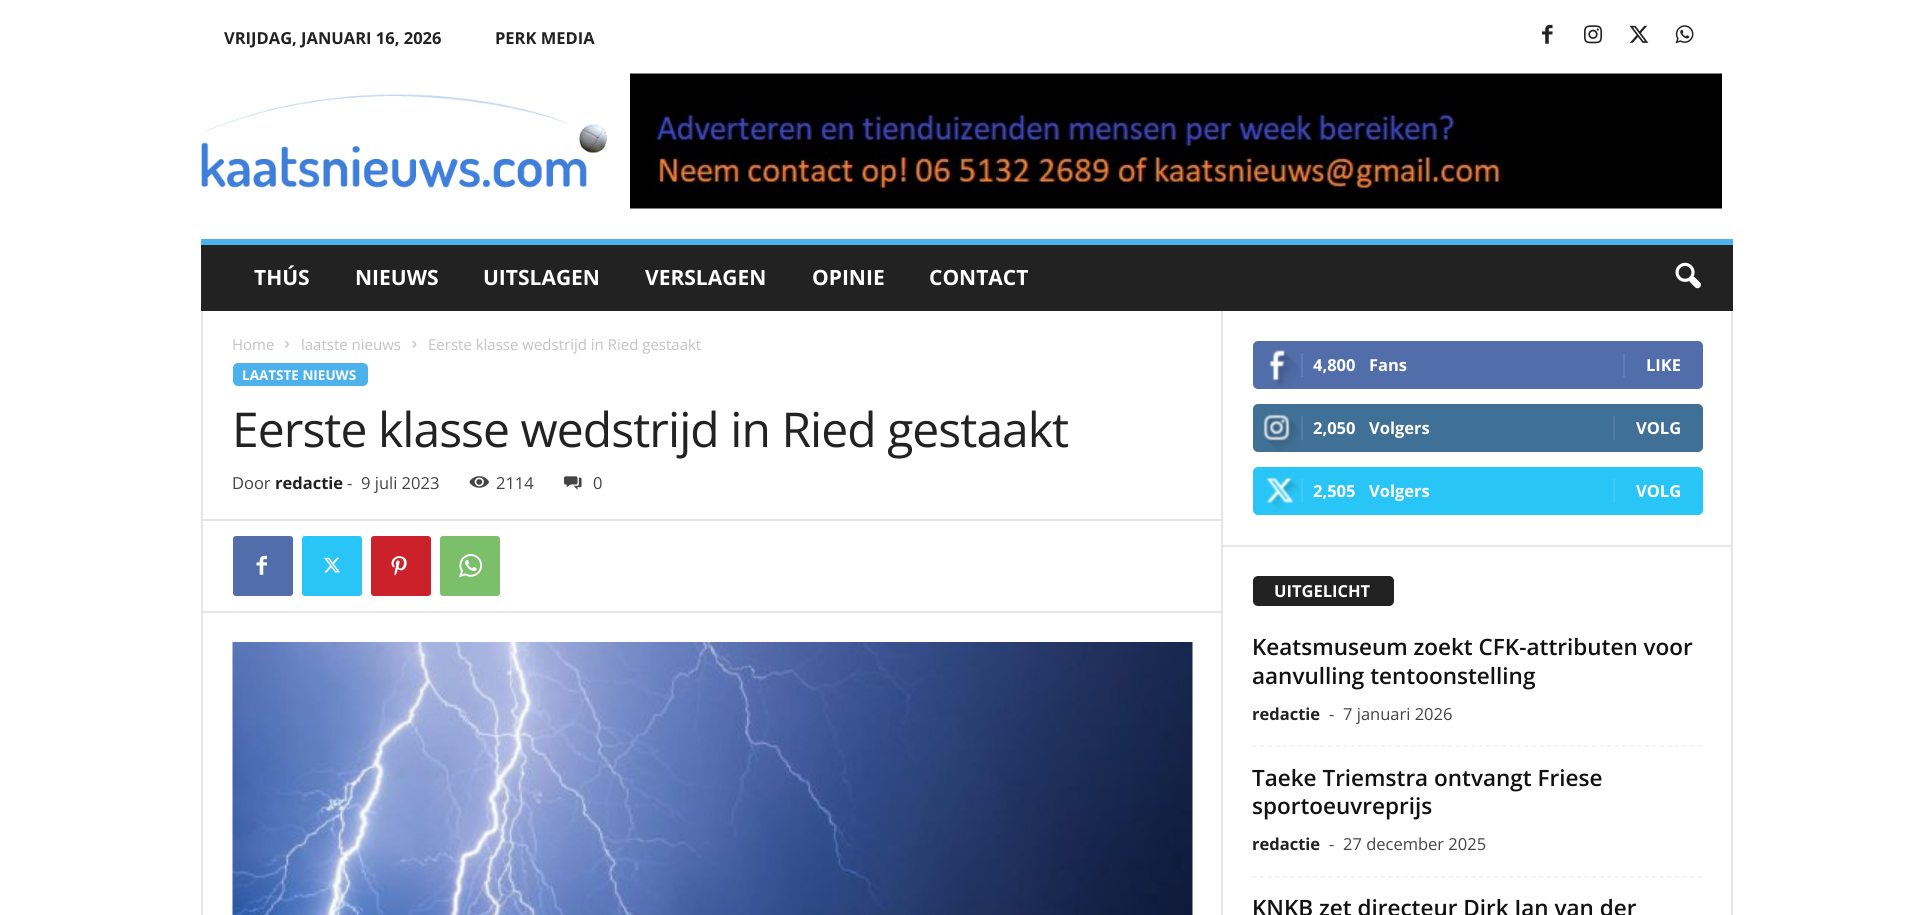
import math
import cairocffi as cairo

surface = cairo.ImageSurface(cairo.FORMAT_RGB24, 1931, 915)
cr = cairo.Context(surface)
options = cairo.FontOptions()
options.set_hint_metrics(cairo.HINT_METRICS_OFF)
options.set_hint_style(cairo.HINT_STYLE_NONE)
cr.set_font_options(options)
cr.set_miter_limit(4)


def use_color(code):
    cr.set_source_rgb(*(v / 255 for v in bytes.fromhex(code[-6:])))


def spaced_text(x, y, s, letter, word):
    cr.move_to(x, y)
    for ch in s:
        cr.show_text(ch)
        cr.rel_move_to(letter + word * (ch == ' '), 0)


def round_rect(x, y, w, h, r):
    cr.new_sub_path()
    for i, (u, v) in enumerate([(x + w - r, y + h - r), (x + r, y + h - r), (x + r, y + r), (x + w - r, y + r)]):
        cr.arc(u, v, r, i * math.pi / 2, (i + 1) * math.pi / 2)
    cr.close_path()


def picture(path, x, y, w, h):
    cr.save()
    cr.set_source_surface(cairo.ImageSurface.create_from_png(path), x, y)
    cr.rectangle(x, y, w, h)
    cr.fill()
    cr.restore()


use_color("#ffffff")
cr.paint()
cr.select_font_face("Open Sans", cairo.FONT_SLANT_NORMAL, cairo.FONT_WEIGHT_BOLD)
cr.set_font_size(16.5)
use_color("#222222")
cr.move_to(224, 44)
cr.show_text("VRIJDAG, JANUARI 16, 2026")
cr.move_to(495, 44)
cr.show_text("PERK MEDIA")
picture("img1.png", 1542, 24, 11, 20)
picture("img2.png", 1584, 25, 18, 19)
picture("img3.png", 1629, 25, 20, 18)
picture("img4.png", 1675, 25, 19, 19)
picture("img5.png", 201, 94, 406, 94)
picture("img6.png", 630, 73, 1092, 136)
cr.rectangle(201, 245, 1532, 66)
cr.fill()
use_color("#4db2ec")
cr.rectangle(201, 239, 1532, 6)
cr.fill()
cr.set_font_size(21)
use_color("#ffffff")
cr.move_to(254, 285)
cr.show_text("THÚS")
cr.move_to(355, 285)
cr.show_text("NIEUWS")
cr.move_to(483, 285)
cr.show_text("UITSLAGEN")
cr.move_to(645, 285)
cr.show_text("VERSLAGEN")
cr.move_to(812, 285)
cr.show_text("OPINIE")
cr.move_to(929, 285)
cr.show_text("CONTACT")
picture("img7.png", 1675, 262, 26, 27)
use_color("#e6e6e6")
cr.rectangle(201, 311, 2, 604)
cr.fill()
cr.select_font_face("Open Sans")
cr.set_font_size(15)
use_color("#c3c3c3")
cr.move_to(232, 350)
cr.show_text("Home")
picture("img8.png", 285, 340, 4, 8)
cr.move_to(301, 350)
cr.show_text("laatste nieuws")
picture("img9.png", 412, 340, 5, 8)
cr.move_to(428, 350)
cr.show_text("Eerste klasse wedstrijd in Ried gestaakt")
use_color("#4db2ec")
round_rect(233, 363, 135, 23, 5)
cr.fill()
cr.select_font_face("Open Sans", cairo.FONT_SLANT_NORMAL, cairo.FONT_WEIGHT_BOLD)
cr.set_font_size(13.5)
use_color("#ffffff")
cr.move_to(242, 380)
cr.show_text("LAATSTE NIEUWS")
cr.select_font_face("Open Sans")
cr.set_font_size(48)
use_color("#222222")
spaced_text(232, 447, "Eerste klasse wedstrijd in Ried gestaakt", -0.95, 0)
cr.set_font_size(16.5)
use_color("#444444")
cr.move_to(232, 489)
cr.show_text("Door")
cr.select_font_face("Open Sans", cairo.FONT_SLANT_NORMAL, cairo.FONT_WEIGHT_BOLD)
use_color("#222222")
cr.move_to(275, 489)
cr.show_text("redactie")
cr.select_font_face("Open Sans")
use_color("#444444")
cr.move_to(347, 489)
cr.show_text("-")
cr.move_to(361, 489)
cr.show_text("9 juli 2023")
picture("img10.png", 469, 476, 20, 12)
cr.move_to(496, 489)
cr.show_text("2114")
picture("img11.png", 564, 476, 18, 14)
cr.move_to(593, 489)
cr.show_text("0")
use_color("#e6e6e6")
cr.rectangle(203, 519, 1018, 2)
cr.fill()
use_color("#516eab")
round_rect(233, 536, 60, 60, 3)
cr.fill()
picture("img12.png", 256, 555, 11, 20)
use_color("#29c5f6")
round_rect(302, 536, 60, 60, 3)
cr.fill()
picture("img13.png", 324, 557, 16, 16)
use_color("#ca212a")
round_rect(371, 536, 60, 60, 3)
cr.fill()
picture("img14.png", 391, 556, 16, 20)
use_color("#7bbf6a")
round_rect(440, 536, 60, 60, 3)
cr.fill()
picture("img15.png", 459, 554, 24, 24)
use_color("#e6e6e6")
cr.rectangle(203, 611, 1018, 2)
cr.fill()
picture("img16.png", 232, 642, 961, 273)
cr.rectangle(1221, 311, 2, 604)
cr.fill()
use_color("#516eab")
round_rect(1253, 341, 450, 48, 5)
cr.fill()
picture("img17.png", 1269, 350, 31, 38)
use_color("#627db3")
cr.rectangle(1301, 353, 2, 24)
cr.fill()
cr.select_font_face("Open Sans", cairo.FONT_SLANT_NORMAL, cairo.FONT_WEIGHT_BOLD)
use_color("#ffffff")
cr.move_to(1313, 371)
cr.show_text("4,800")
cr.move_to(1369, 371)
cr.show_text("Fans")
use_color("#627db3")
cr.rectangle(1623, 353, 2, 24)
cr.fill()
use_color("#ffffff")
cr.move_to(1646, 371)
cr.show_text("LIKE")
use_color("#417096")
round_rect(1253, 404, 450, 48, 5)
cr.fill()
picture("img18.png", 1263, 414, 37, 37)
use_color("#547ea1")
cr.rectangle(1301, 416, 2, 24)
cr.fill()
use_color("#ffffff")
cr.move_to(1313, 434)
cr.show_text("2,050")
cr.move_to(1369, 434)
cr.show_text("Volgers")
use_color("#547ea1")
cr.rectangle(1613, 416, 2, 24)
cr.fill()
use_color("#ffffff")
cr.move_to(1636, 434)
cr.show_text("VOLG")
use_color("#29c5f6")
round_rect(1253, 467, 450, 48, 5)
cr.fill()
picture("img19.png", 1265, 477, 35, 32)
use_color("#3ecbf7")
cr.rectangle(1301, 479, 2, 24)
cr.fill()
use_color("#ffffff")
cr.move_to(1313, 497)
cr.show_text("2,505")
cr.move_to(1369, 497)
cr.show_text("Volgers")
use_color("#3ecbf7")
cr.rectangle(1613, 479, 2, 24)
cr.fill()
use_color("#ffffff")
cr.move_to(1636, 497)
cr.show_text("VOLG")
use_color("#e6e6e6")
cr.rectangle(1223, 545, 508, 2)
cr.fill()
use_color("#222222")
round_rect(1253, 576, 141, 30, 5)
cr.fill()
use_color("#ffffff")
cr.move_to(1274, 597)
cr.show_text("UITGELICHT")
cr.new_path()
cr.move_to(1252.5, 746)
cr.line_to(1702.5, 746)
use_color("#f1f1f1")
cr.set_line_width(1.5)
cr.set_dash([4.5, 3.04])
cr.stroke()
cr.select_font_face("Open Sans SemiBold")
cr.set_font_size(22.5)
use_color("#111111")
cr.move_to(1252, 655)
cr.show_text("Keatsmuseum zoekt CFK-attributen voor")
cr.move_to(1252, 684)
cr.show_text("aanvulling tentoonstelling")
cr.select_font_face("Open Sans", cairo.FONT_SLANT_NORMAL, cairo.FONT_WEIGHT_BOLD)
cr.set_font_size(16.5)
use_color("#222222")
cr.move_to(1252, 720)
cr.show_text("redactie")
cr.select_font_face("Open Sans")
use_color("#444444")
cr.move_to(1329, 720)
cr.show_text("-")
cr.move_to(1343, 720)
cr.show_text("7 januari 2026")
cr.new_path()
cr.move_to(1252.5, 877)
cr.line_to(1702.5, 877)
use_color("#f1f1f1")
cr.stroke()
cr.select_font_face("Open Sans SemiBold")
cr.set_font_size(22.5)
use_color("#111111")
cr.move_to(1252, 786)
cr.show_text("Taeke Triemstra ontvangt Friese")
cr.move_to(1252, 814)
cr.show_text("sportoeuvreprijs")
cr.select_font_face("Open Sans", cairo.FONT_SLANT_NORMAL, cairo.FONT_WEIGHT_BOLD)
cr.set_font_size(16.5)
use_color("#222222")
cr.move_to(1252, 850)
cr.show_text("redactie")
cr.select_font_face("Open Sans")
use_color("#444444")
cr.move_to(1329, 850)
cr.show_text("-")
cr.move_to(1343, 850)
cr.show_text("27 december 2025")
cr.select_font_face("Open Sans SemiBold")
cr.set_font_size(22.5)
use_color("#111111")
cr.move_to(1252, 916)
cr.show_text("KNKB zet directeur Dirk Jan van der")
use_color("#e6e6e6")
cr.rectangle(1731, 311, 2, 604)
cr.fill()
surface.write_to_png("result.png")
